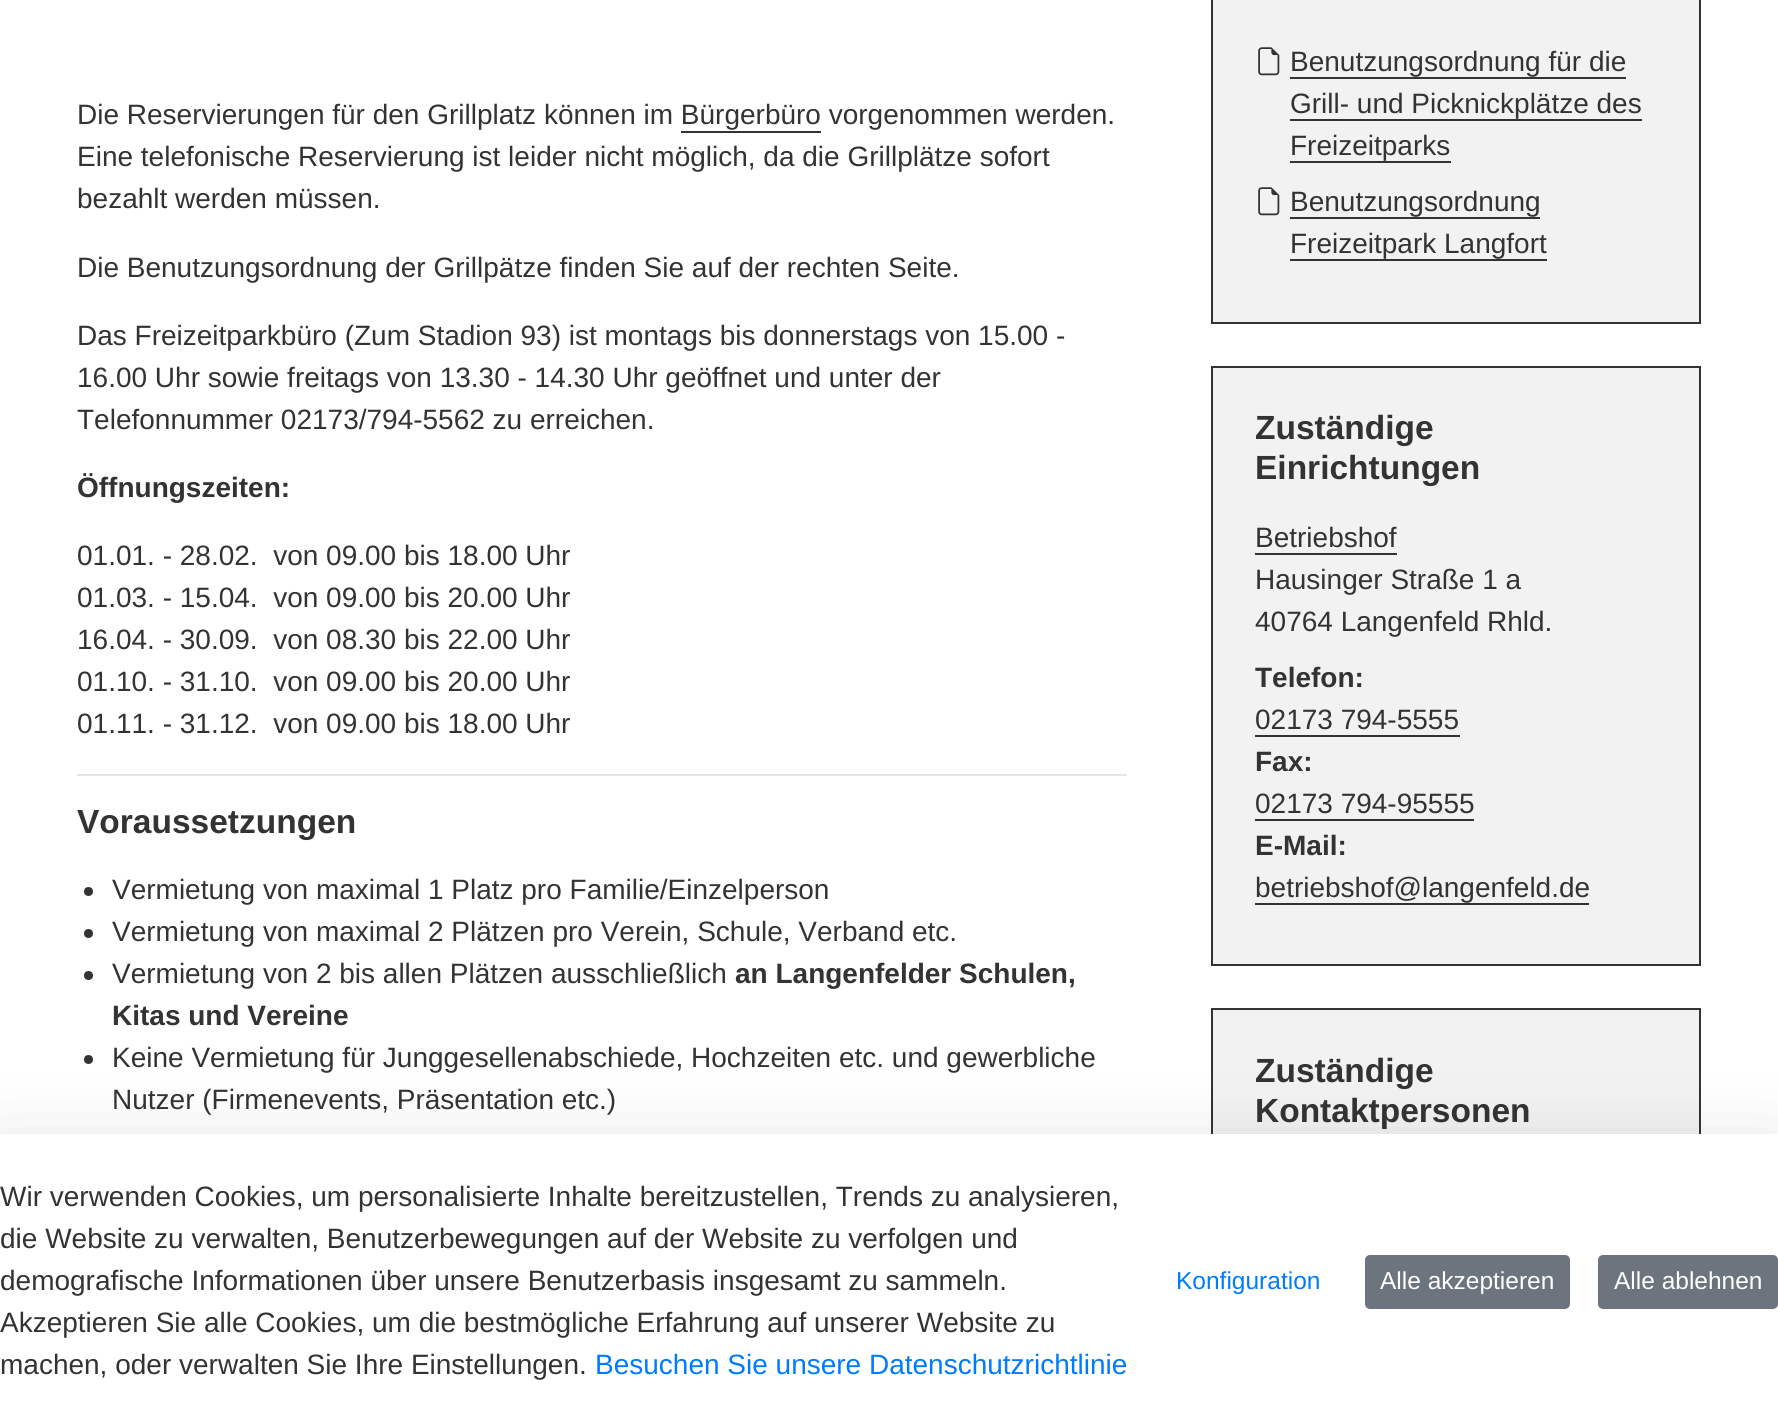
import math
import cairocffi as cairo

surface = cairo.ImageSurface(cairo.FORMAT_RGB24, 1778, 1427)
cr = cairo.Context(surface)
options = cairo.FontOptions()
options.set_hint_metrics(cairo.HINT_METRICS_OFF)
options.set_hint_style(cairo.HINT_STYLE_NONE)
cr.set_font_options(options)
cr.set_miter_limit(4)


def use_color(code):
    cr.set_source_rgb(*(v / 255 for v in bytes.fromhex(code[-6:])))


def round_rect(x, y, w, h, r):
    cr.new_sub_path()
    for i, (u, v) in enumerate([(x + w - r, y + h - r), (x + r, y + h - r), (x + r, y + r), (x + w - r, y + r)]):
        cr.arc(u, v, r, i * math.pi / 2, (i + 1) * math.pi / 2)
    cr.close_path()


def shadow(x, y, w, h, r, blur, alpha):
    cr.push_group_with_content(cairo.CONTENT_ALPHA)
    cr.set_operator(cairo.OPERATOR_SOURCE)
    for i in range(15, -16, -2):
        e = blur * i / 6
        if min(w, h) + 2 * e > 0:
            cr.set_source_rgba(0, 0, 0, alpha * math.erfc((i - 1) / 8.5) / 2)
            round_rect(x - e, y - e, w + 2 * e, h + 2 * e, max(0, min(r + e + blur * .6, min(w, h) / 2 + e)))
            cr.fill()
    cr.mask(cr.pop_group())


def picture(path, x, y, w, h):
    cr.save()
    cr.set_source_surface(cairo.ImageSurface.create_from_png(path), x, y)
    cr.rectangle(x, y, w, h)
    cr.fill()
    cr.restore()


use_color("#ffffff")
cr.paint()
cr.select_font_face("Liberation Sans")
cr.set_font_size(28)
use_color("#333333")
cr.move_to(77, 124)
cr.show_text("Die Reservierungen für den Grillplatz können im Bürgerbüro vorgenommen werden.")
cr.rectangle(681, 131, 140, 2)
cr.fill()
cr.move_to(77, 166)
cr.show_text("Eine telefonische Reservierung ist leider nicht möglich, da die Grillplätze sofort")
cr.move_to(77, 208)
cr.show_text("bezahlt werden müssen.")
cr.move_to(77, 277)
cr.show_text("Die Benutzungsordnung der Grillpätze finden Sie auf der rechten Seite.")
cr.move_to(77, 345)
cr.show_text("Das Freizeitparkbüro (Zum Stadion 93) ist montags bis donnerstags von 15.00 -")
cr.move_to(77, 387)
cr.show_text("16.00 Uhr sowie freitags von 13.30 - 14.30 Uhr geöffnet und unter der")
cr.move_to(77, 429)
cr.show_text("Telefonnummer 02173/794-5562 zu erreichen.")
cr.select_font_face("Liberation Sans", cairo.FONT_SLANT_NORMAL, cairo.FONT_WEIGHT_BOLD)
cr.move_to(77, 497)
cr.show_text("Öffnungszeiten:")
cr.select_font_face("Liberation Sans")
cr.move_to(77, 565)
cr.show_text("01.01. - 28.02.  von 09.00 bis 18.00 Uhr")
cr.move_to(77, 607)
cr.show_text("01.03. - 15.04.  von 09.00 bis 20.00 Uhr")
cr.move_to(77, 649)
cr.show_text("16.04. - 30.09.  von 08.30 bis 22.00 Uhr")
cr.move_to(77, 691)
cr.show_text("01.10. - 31.10.  von 09.00 bis 20.00 Uhr")
cr.move_to(77, 733)
cr.show_text("01.11. - 31.12.  von 09.00 bis 18.00 Uhr")
use_color("#e6e6e6")
cr.rectangle(77, 774, 1050, 2)
cr.fill()
cr.select_font_face("Liberation Sans", cairo.FONT_SLANT_NORMAL, cairo.FONT_WEIGHT_BOLD)
cr.set_font_size(33.5)
use_color("#333333")
cr.move_to(77, 833)
cr.show_text("Voraussetzungen")
cr.new_path()
cr.arc(88.5, 891.5, 4.5, 0, 2 * math.pi)
cr.fill()
cr.select_font_face("Liberation Sans")
cr.set_font_size(28)
cr.move_to(112, 899)
cr.show_text("Vermietung von maximal 1 Platz pro Familie/Einzelperson")
cr.new_path()
cr.arc(88.5, 933.5, 4.5, 0, 2 * math.pi)
cr.fill()
cr.move_to(112, 941)
cr.show_text("Vermietung von maximal 2 Plätzen pro Verein, Schule, Verband etc.")
cr.new_path()
cr.arc(88.5, 975.5, 4.5, 0, 2 * math.pi)
cr.fill()
cr.move_to(112, 983)
cr.show_text("Vermietung von 2 bis allen Plätzen ausschließlich")
cr.select_font_face("Liberation Sans", cairo.FONT_SLANT_NORMAL, cairo.FONT_WEIGHT_BOLD)
cr.move_to(735, 983)
cr.show_text("an Langenfelder Schulen,")
cr.move_to(112, 1025)
cr.show_text("Kitas und Vereine")
cr.new_path()
cr.arc(88.5, 1059.5, 4.5, 0, 2 * math.pi)
cr.fill()
cr.select_font_face("Liberation Sans")
cr.move_to(112, 1067)
cr.show_text("Keine Vermietung für Junggesellenabschiede, Hochzeiten etc. und gewerbliche")
cr.move_to(112, 1109)
cr.show_text("Nutzer (Firmenevents, Präsentation etc.)")
use_color("#f2f2f2")
cr.rectangle(1212, -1, 488, 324)
cr.fill_preserve()
use_color("#333333")
cr.stroke()
picture("img1.png", 1258, 47, 22, 29)
cr.move_to(1290, 71)
cr.show_text("Benutzungsordnung für die")
cr.rectangle(1290, 77, 336, 2)
cr.fill()
cr.move_to(1290, 113)
cr.show_text("Grill- und Picknickplätze des")
cr.rectangle(1290, 119, 352, 2)
cr.fill()
cr.move_to(1290, 155)
cr.show_text("Freizeitparks")
cr.rectangle(1290, 161, 161, 2)
cr.fill()
picture("img1.png", 1258, 187, 22, 29)
cr.move_to(1290, 211)
cr.show_text("Benutzungsordnung")
cr.rectangle(1290, 217, 250, 2)
cr.fill()
cr.move_to(1290, 253)
cr.show_text("Freizeitpark Langfort")
cr.rectangle(1290, 259, 257, 2)
cr.fill()
use_color("#f2f2f2")
cr.rectangle(1212, 367, 488, 598)
cr.fill_preserve()
use_color("#333333")
cr.stroke()
cr.select_font_face("Liberation Sans", cairo.FONT_SLANT_NORMAL, cairo.FONT_WEIGHT_BOLD)
cr.set_font_size(33.5)
cr.move_to(1255, 439)
cr.show_text("Zuständige")
cr.move_to(1255, 479)
cr.show_text("Einrichtungen")
cr.select_font_face("Liberation Sans")
cr.set_font_size(28)
cr.move_to(1255, 547)
cr.show_text("Betriebshof")
cr.rectangle(1255, 553, 142, 2)
cr.fill()
cr.move_to(1255, 589)
cr.show_text("Hausinger Straße 1 a")
cr.move_to(1255, 631)
cr.show_text("40764 Langenfeld Rhld.")
cr.select_font_face("Liberation Sans", cairo.FONT_SLANT_NORMAL, cairo.FONT_WEIGHT_BOLD)
cr.move_to(1255, 687)
cr.show_text("Telefon:")
cr.select_font_face("Liberation Sans")
cr.move_to(1255, 729)
cr.show_text("02173 794-5555")
cr.rectangle(1255, 735, 205, 2)
cr.fill()
cr.select_font_face("Liberation Sans", cairo.FONT_SLANT_NORMAL, cairo.FONT_WEIGHT_BOLD)
cr.move_to(1255, 771)
cr.show_text("Fax:")
cr.select_font_face("Liberation Sans")
cr.move_to(1255, 813)
cr.show_text("02173 794-95555")
cr.rectangle(1255, 819, 219, 2)
cr.fill()
cr.select_font_face("Liberation Sans", cairo.FONT_SLANT_NORMAL, cairo.FONT_WEIGHT_BOLD)
cr.move_to(1255, 855)
cr.show_text("E-Mail:")
cr.select_font_face("Liberation Sans")
cr.move_to(1255, 897)
cr.show_text("betriebshof@langenfeld.de")
cr.rectangle(1255, 903, 334, 2)
cr.fill()
use_color("#f2f2f2")
cr.rectangle(1213, 1010, 486, 124)
cr.fill()
cr.rectangle(1212, 1009, 488, 374)
use_color("#333333")
cr.stroke()
cr.select_font_face("Liberation Sans", cairo.FONT_SLANT_NORMAL, cairo.FONT_WEIGHT_BOLD)
cr.set_font_size(33.5)
cr.move_to(1255, 1082)
cr.show_text("Zuständige")
cr.move_to(1255, 1122)
cr.show_text("Kontaktpersonen")
use_color("#000000")
shadow(0, 1162, 1778, 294, 0, 42, 0.18)
use_color("#ffffff")
cr.rectangle(0, 1134, 1778, 293)
cr.fill()
cr.select_font_face("Liberation Sans")
cr.set_font_size(28)
use_color("#333333")
cr.move_to(0, 1206)
cr.show_text("Wir verwenden Cookies, um personalisierte Inhalte bereitzustellen, Trends zu analysieren,")
cr.move_to(0, 1248)
cr.show_text("die Website zu verwalten, Benutzerbewegungen auf der Website zu verfolgen und")
cr.move_to(0, 1290)
cr.show_text("demografische Informationen über unsere Benutzerbasis insgesamt zu sammeln.")
cr.move_to(0, 1332)
cr.show_text("Akzeptieren Sie alle Cookies, um die bestmögliche Erfahrung auf unserer Website zu")
cr.move_to(0, 1374)
cr.show_text("machen, oder verwalten Sie Ihre Einstellungen.")
use_color("#007bff")
cr.move_to(595, 1374)
cr.show_text("Besuchen Sie unsere Datenschutzrichtlinie")
cr.set_font_size(24.5)
cr.move_to(1176, 1289)
cr.show_text("Konfiguration")
use_color("#6c757d")
round_rect(1366, 1256, 203, 52, 4)
cr.fill_preserve()
cr.stroke()
use_color("#ffffff")
cr.move_to(1380, 1289)
cr.show_text("Alle akzeptieren")
use_color("#6c757d")
round_rect(1599, 1256, 178, 52, 4)
cr.fill_preserve()
cr.stroke()
use_color("#ffffff")
cr.move_to(1614, 1289)
cr.show_text("Alle ablehnen")
surface.write_to_png("result.png")
